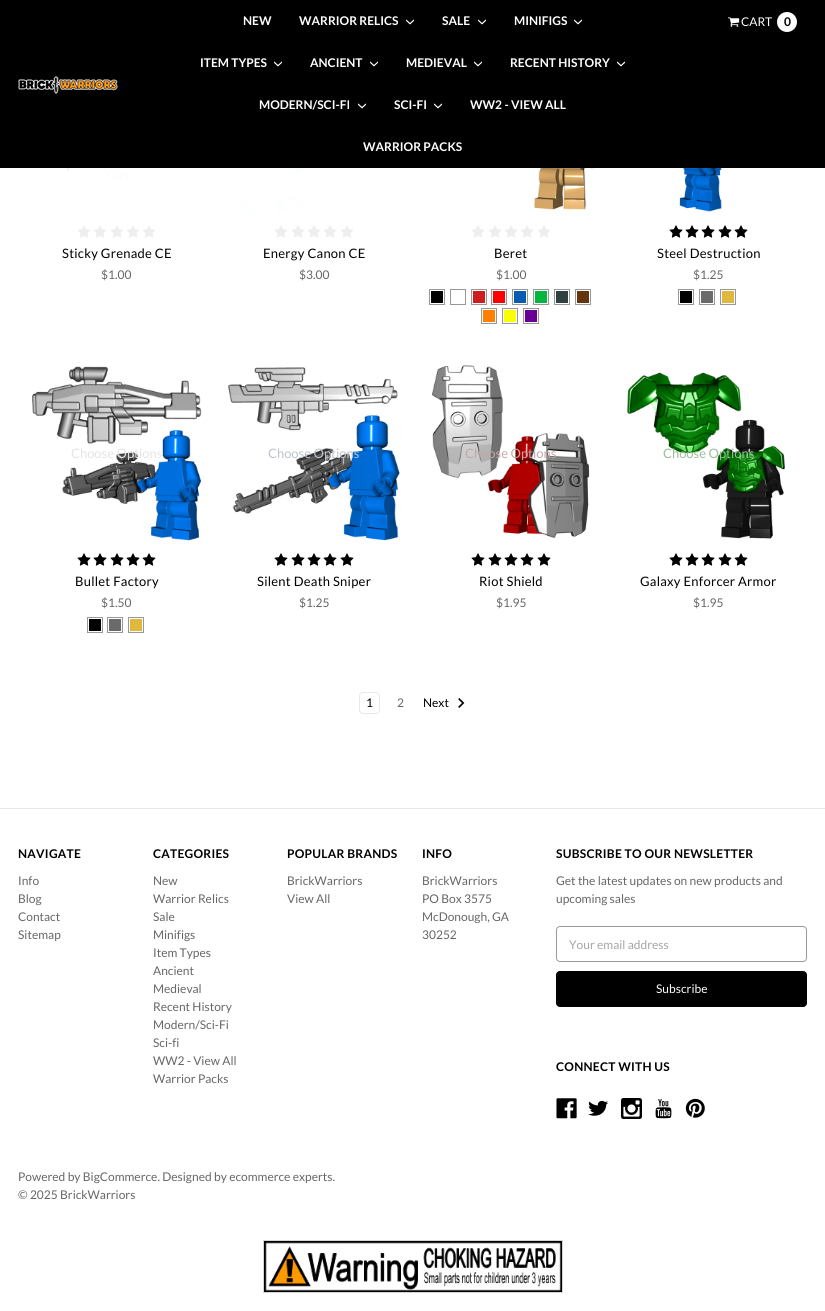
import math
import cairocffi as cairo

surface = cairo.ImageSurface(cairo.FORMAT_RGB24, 825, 1311)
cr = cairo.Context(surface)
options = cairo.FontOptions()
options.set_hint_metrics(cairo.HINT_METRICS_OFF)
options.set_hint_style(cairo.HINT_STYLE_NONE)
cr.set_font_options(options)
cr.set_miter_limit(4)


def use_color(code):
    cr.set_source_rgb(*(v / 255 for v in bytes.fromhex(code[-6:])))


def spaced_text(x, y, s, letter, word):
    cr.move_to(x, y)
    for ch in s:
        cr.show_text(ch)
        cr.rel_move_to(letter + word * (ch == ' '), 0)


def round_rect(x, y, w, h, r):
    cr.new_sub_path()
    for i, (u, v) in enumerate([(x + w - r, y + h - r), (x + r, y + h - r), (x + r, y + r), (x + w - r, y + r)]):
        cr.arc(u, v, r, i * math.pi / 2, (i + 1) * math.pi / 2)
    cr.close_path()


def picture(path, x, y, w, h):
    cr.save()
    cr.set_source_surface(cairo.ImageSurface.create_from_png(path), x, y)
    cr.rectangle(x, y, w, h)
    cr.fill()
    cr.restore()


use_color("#ffffff")
cr.paint()
use_color("#000000")
cr.rectangle(0, 0, 825, 168)
cr.fill()
picture("img1.png", 18, 76, 100, 18)
cr.select_font_face("Lato", cairo.FONT_SLANT_NORMAL, cairo.FONT_WEIGHT_BOLD)
cr.set_font_size(12)
use_color("#ffffff")
cr.move_to(243, 25)
cr.show_text("NEW")
cr.move_to(299, 25)
cr.show_text("WARRIOR RELICS")
picture("img2.png", 406, 19, 8, 6)
cr.move_to(442, 25)
cr.show_text("SALE")
picture("img2.png", 478, 19, 8, 6)
cr.move_to(514, 25)
cr.show_text("MINIFIGS")
picture("img2.png", 574, 19, 8, 6)
cr.move_to(200, 67)
cr.show_text("ITEM TYPES")
picture("img2.png", 274, 61, 8, 6)
cr.move_to(310, 67)
cr.show_text("ANCIENT")
picture("img2.png", 370, 61, 8, 6)
cr.move_to(406, 67)
cr.show_text("MEDIEVAL")
picture("img2.png", 474, 61, 8, 6)
cr.move_to(510, 67)
cr.show_text("RECENT HISTORY")
picture("img2.png", 617, 61, 8, 6)
cr.move_to(259, 109)
cr.show_text("MODERN/SCI-FI")
picture("img2.png", 358, 103, 8, 6)
cr.move_to(394, 109)
cr.show_text("SCI-FI")
picture("img2.png", 434, 103, 8, 6)
cr.move_to(470, 109)
cr.show_text("WW2 - VIEW ALL")
cr.move_to(363, 151)
cr.show_text("WARRIOR PACKS")
picture("img3.png", 728, 17, 12, 10)
cr.select_font_face("Lato")
cr.move_to(741, 26)
cr.show_text("CART")
cr.new_path()
cr.arc(787, 22, 10, 0, 2 * math.pi)
cr.fill()
cr.select_font_face("Lato", cairo.FONT_SLANT_NORMAL, cairo.FONT_WEIGHT_BOLD)
use_color("#000000")
cr.move_to(784, 26)
cr.show_text("0")
picture("img4.png", 39, 168, 126, 30)
picture("img5.png", 78, 225, 12, 13)
picture("img5.png", 94, 225, 12, 13)
picture("img5.png", 111, 225, 12, 13)
picture("img5.png", 127, 225, 12, 13)
picture("img5.png", 143, 225, 12, 13)
cr.select_font_face("Lato")
cr.set_font_size(13)
spaced_text(62, 258, "Sticky Grenade CE", 0.25, 0)
cr.set_font_size(12)
use_color("#666666")
cr.move_to(101, 279)
cr.show_text("$1.00")
picture("img6.png", 237, 168, 131, 47)
picture("img5.png", 275, 225, 12, 13)
picture("img5.png", 292, 225, 12, 13)
picture("img5.png", 308, 225, 12, 13)
picture("img5.png", 324, 225, 12, 13)
picture("img5.png", 341, 225, 12, 13)
cr.set_font_size(13)
use_color("#000000")
spaced_text(263, 258, "Energy Canon CE", 0.25, 0)
cr.set_font_size(12)
use_color("#666666")
cr.move_to(299, 279)
cr.show_text("$3.00")
picture("img7.png", 430, 168, 166, 42)
picture("img5.png", 472, 225, 12, 13)
picture("img5.png", 489, 225, 12, 13)
picture("img5.png", 505, 225, 12, 13)
picture("img5.png", 521, 225, 12, 13)
picture("img5.png", 538, 225, 12, 13)
cr.set_font_size(13)
use_color("#000000")
spaced_text(494, 258, "Beret", 0.25, 0)
cr.set_font_size(12)
use_color("#666666")
cr.move_to(496, 279)
cr.show_text("$1.00")
cr.rectangle(429.5, 289.5, 15, 15)
use_color("#989898")
cr.set_line_width(1)
cr.stroke()
use_color("#000000")
cr.rectangle(431, 291, 12, 12)
cr.fill()
cr.rectangle(450.5, 289.5, 15, 15)
use_color("#989898")
cr.stroke()
cr.rectangle(471.5, 289.5, 15, 15)
cr.stroke()
use_color("#cf1d1d")
cr.rectangle(473, 291, 12, 12)
cr.fill()
cr.rectangle(491.5, 289.5, 15, 15)
use_color("#989898")
cr.stroke()
use_color("#ff0000")
cr.rectangle(493, 291, 12, 12)
cr.fill()
cr.rectangle(512.5, 289.5, 15, 15)
use_color("#989898")
cr.stroke()
use_color("#065cb3")
cr.rectangle(514, 291, 12, 12)
cr.fill()
cr.rectangle(533.5, 289.5, 15, 15)
use_color("#989898")
cr.stroke()
use_color("#00b83d")
cr.rectangle(535, 291, 12, 12)
cr.fill()
cr.rectangle(554.5, 289.5, 15, 15)
use_color("#989898")
cr.stroke()
use_color("#314142")
cr.rectangle(556, 291, 12, 12)
cr.fill()
cr.rectangle(575.5, 289.5, 15, 15)
use_color("#989898")
cr.stroke()
use_color("#66350d")
cr.rectangle(577, 291, 12, 12)
cr.fill()
cr.rectangle(481.5, 308.5, 15, 15)
use_color("#989898")
cr.stroke()
use_color("#ff8000")
cr.rectangle(483, 310, 12, 12)
cr.fill()
cr.rectangle(502.5, 308.5, 15, 15)
use_color("#989898")
cr.stroke()
use_color("#f7ff00")
cr.rectangle(504, 310, 12, 12)
cr.fill()
cr.rectangle(523.5, 308.5, 15, 15)
use_color("#989898")
cr.stroke()
use_color("#690096")
cr.rectangle(525, 310, 12, 12)
cr.fill()
picture("img8.png", 624, 168, 169, 44)
picture("img9.png", 669, 225, 14, 13)
picture("img9.png", 685, 225, 14, 13)
picture("img9.png", 701, 225, 14, 13)
picture("img9.png", 718, 225, 14, 13)
picture("img9.png", 734, 225, 14, 13)
cr.set_font_size(13)
use_color("#000000")
spaced_text(657, 258, "Steel Destruction", 0.25, 0)
cr.set_font_size(12)
use_color("#666666")
cr.move_to(693, 279)
cr.show_text("$1.25")
cr.rectangle(678.5, 289.5, 15, 15)
use_color("#989898")
cr.stroke()
use_color("#000000")
cr.rectangle(680, 291, 12, 12)
cr.fill()
cr.rectangle(699.5, 289.5, 15, 15)
use_color("#989898")
cr.stroke()
use_color("#6b696b")
cr.rectangle(701, 291, 12, 12)
cr.fill()
cr.rectangle(720.5, 289.5, 15, 15)
use_color("#989898")
cr.stroke()
use_color("#e0b83e")
cr.rectangle(722, 291, 12, 12)
cr.fill()
picture("img10.png", 32, 366, 170, 175)
cr.set_font_size(13)
use_color("#e4e4e4")
cr.move_to(71, 458)
cr.show_text("Choose Options")
picture("img9.png", 77, 553, 14, 13)
picture("img9.png", 93, 553, 14, 13)
picture("img9.png", 110, 553, 14, 13)
picture("img9.png", 126, 553, 14, 13)
picture("img9.png", 142, 553, 14, 13)
use_color("#000000")
spaced_text(75, 586, "Bullet Factory", 0.25, 0)
cr.set_font_size(12)
use_color("#666666")
cr.move_to(101, 607)
cr.show_text("$1.50")
cr.rectangle(87.5, 617.5, 15, 15)
use_color("#989898")
cr.stroke()
use_color("#000000")
cr.rectangle(89, 619, 12, 12)
cr.fill()
cr.rectangle(107.5, 617.5, 15, 15)
use_color("#989898")
cr.stroke()
use_color("#6b696b")
cr.rectangle(109, 619, 12, 12)
cr.fill()
cr.rectangle(128.5, 617.5, 15, 15)
use_color("#989898")
cr.stroke()
use_color("#e0b83e")
cr.rectangle(130, 619, 12, 12)
cr.fill()
picture("img11.png", 228, 367, 172, 174)
cr.set_font_size(13)
use_color("#bbc3cb")
cr.move_to(268, 458)
cr.show_text("Choose Options")
picture("img9.png", 274, 553, 14, 13)
picture("img9.png", 291, 553, 14, 13)
picture("img9.png", 307, 553, 14, 13)
picture("img9.png", 323, 553, 14, 13)
picture("img9.png", 340, 553, 14, 13)
use_color("#000000")
spaced_text(257, 586, "Silent Death Sniper", 0.25, 0)
cr.set_font_size(12)
use_color("#666666")
cr.move_to(299, 607)
cr.show_text("$1.25")
picture("img12.png", 432, 365, 158, 173)
cr.set_font_size(13)
use_color("#c4a7a7")
cr.move_to(465, 458)
cr.show_text("Choose Options")
picture("img9.png", 471, 553, 14, 13)
picture("img9.png", 488, 553, 14, 13)
picture("img9.png", 504, 553, 14, 13)
picture("img9.png", 520, 553, 14, 13)
picture("img9.png", 537, 553, 14, 13)
use_color("#000000")
spaced_text(479, 586, "Riot Shield", 0.25, 0)
cr.set_font_size(12)
use_color("#666666")
cr.move_to(496, 607)
cr.show_text("$1.95")
picture("img13.png", 627, 372, 158, 167)
cr.set_font_size(13)
use_color("#99be99")
cr.move_to(663, 458)
cr.show_text("Choose Options")
picture("img9.png", 669, 553, 14, 13)
picture("img9.png", 685, 553, 14, 13)
picture("img9.png", 701, 553, 14, 13)
picture("img9.png", 718, 553, 14, 13)
picture("img9.png", 734, 553, 14, 13)
use_color("#000000")
spaced_text(640, 586, "Galaxy Enforcer Armor", 0.25, 0)
cr.set_font_size(12)
use_color("#666666")
cr.move_to(693, 607)
cr.show_text("$1.95")
round_rect(359.5, 692.5, 20, 21, 3.5)
use_color("#e8e8e8")
cr.stroke()
use_color("#000000")
cr.move_to(366, 707)
cr.show_text("1")
use_color("#666666")
cr.move_to(397, 707)
cr.show_text("2")
use_color("#000000")
cr.move_to(423, 707)
cr.show_text("Next")
picture("img14.png", 458, 698, 7, 10)
use_color("#e8e8e8")
cr.rectangle(0, 808, 825, 1)
cr.fill()
cr.select_font_face("Lato", cairo.FONT_SLANT_NORMAL, cairo.FONT_WEIGHT_BOLD)
use_color("#000000")
spaced_text(18, 858, "NAVIGATE", 0.25, 0)
cr.select_font_face("Lato")
use_color("#666666")
cr.move_to(18, 885)
cr.show_text("Info")
cr.move_to(18, 903)
cr.show_text("Blog")
cr.move_to(18, 921)
cr.show_text("Contact")
cr.move_to(18, 939)
cr.show_text("Sitemap")
cr.select_font_face("Lato", cairo.FONT_SLANT_NORMAL, cairo.FONT_WEIGHT_BOLD)
use_color("#000000")
spaced_text(153, 858, "CATEGORIES", 0.25, 0)
cr.select_font_face("Lato")
use_color("#666666")
cr.move_to(153, 885)
cr.show_text("New")
cr.move_to(153, 903)
cr.show_text("Warrior Relics")
cr.move_to(153, 921)
cr.show_text("Sale")
cr.move_to(153, 939)
cr.show_text("Minifigs")
cr.move_to(153, 957)
cr.show_text("Item Types")
cr.move_to(153, 975)
cr.show_text("Ancient")
cr.move_to(153, 993)
cr.show_text("Medieval")
cr.move_to(153, 1011)
cr.show_text("Recent History")
cr.move_to(153, 1029)
cr.show_text("Modern/Sci-Fi")
cr.move_to(153, 1047)
cr.show_text("Sci-fi")
cr.move_to(153, 1065)
cr.show_text("WW2 - View All")
cr.move_to(153, 1083)
cr.show_text("Warrior Packs")
cr.select_font_face("Lato", cairo.FONT_SLANT_NORMAL, cairo.FONT_WEIGHT_BOLD)
use_color("#000000")
spaced_text(287, 858, "POPULAR BRANDS", 0.25, 0)
cr.select_font_face("Lato")
use_color("#666666")
cr.move_to(287, 885)
cr.show_text("BrickWarriors")
cr.move_to(287, 903)
cr.show_text("View All")
cr.select_font_face("Lato", cairo.FONT_SLANT_NORMAL, cairo.FONT_WEIGHT_BOLD)
use_color("#000000")
spaced_text(422, 858, "INFO", 0.25, 0)
cr.select_font_face("Lato")
use_color("#666666")
cr.move_to(422, 885)
cr.show_text("BrickWarriors")
cr.move_to(422, 903)
cr.show_text("PO Box 3575")
cr.move_to(422, 921)
cr.show_text("McDonough, GA")
cr.move_to(422, 939)
cr.show_text("30252")
cr.select_font_face("Lato", cairo.FONT_SLANT_NORMAL, cairo.FONT_WEIGHT_BOLD)
use_color("#000000")
spaced_text(556, 858, "SUBSCRIBE TO OUR NEWSLETTER", 0.25, 0)
cr.select_font_face("Lato")
use_color("#666666")
cr.move_to(556, 885)
cr.show_text("Get the latest updates on new products and")
cr.move_to(556, 903)
cr.show_text("upcoming sales")
round_rect(556.5, 926.5, 250, 35, 3.5)
use_color("#999999")
cr.stroke()
use_color("#a5a5a5")
cr.move_to(569, 949)
cr.show_text("Your email address")
use_color("#000000")
round_rect(556.5, 971.5, 250, 35, 3.5)
cr.fill_preserve()
cr.stroke()
use_color("#ffffff")
cr.move_to(656, 993)
cr.show_text("Subscribe")
cr.select_font_face("Lato", cairo.FONT_SLANT_NORMAL, cairo.FONT_WEIGHT_BOLD)
use_color("#000000")
spaced_text(556, 1071, "CONNECT WITH US", 0.25, 0)
picture("img15.png", 556, 1098, 21, 21)
picture("img16.png", 588, 1100, 21, 16)
picture("img17.png", 621, 1098, 21, 21)
picture("img18.png", 655, 1099, 17, 20)
picture("img19.png", 685, 1098, 20, 20)
cr.select_font_face("Lato")
use_color("#666666")
cr.move_to(18, 1181)
cr.show_text("Powered by BigCommerce. Designed by ecommerce experts.")
cr.move_to(18, 1199)
cr.show_text("© 2025 BrickWarriors")
cr.rectangle(263.5, 1240.5, 299, 52)
use_color("#d6d6d6")
cr.stroke()
picture("img20.png", 264, 1241, 298, 51)
surface.write_to_png("result.png")
